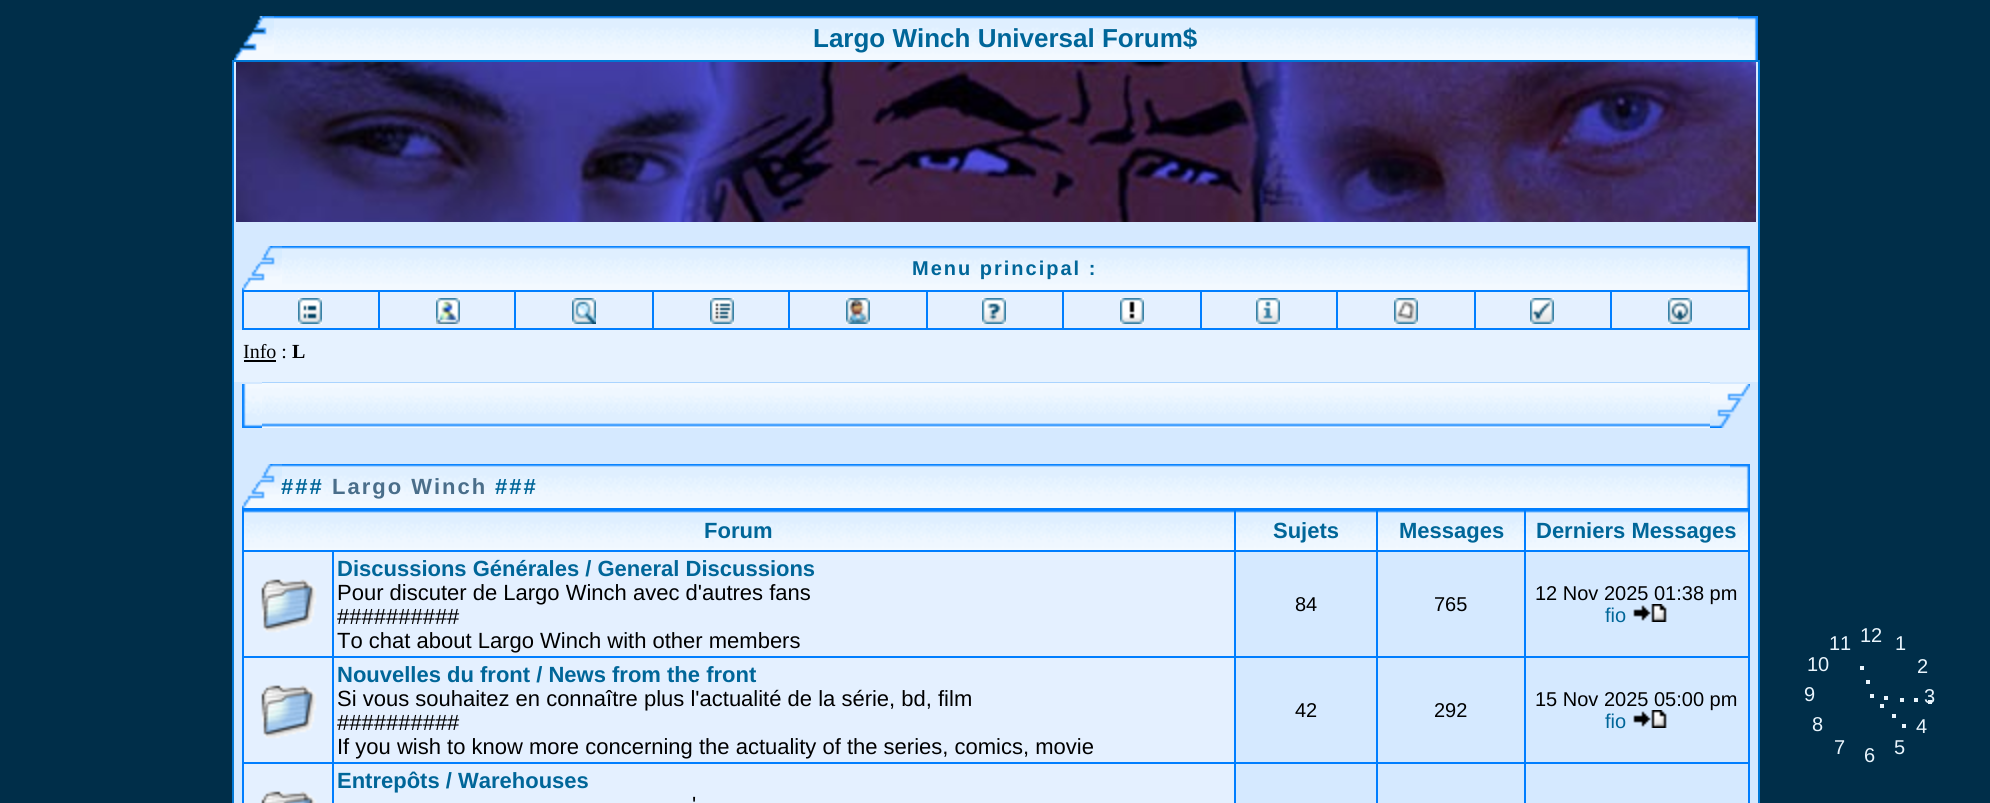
import math
import cairocffi as cairo

surface = cairo.ImageSurface(cairo.FORMAT_RGB24, 1990, 803)
cr = cairo.Context(surface)
options = cairo.FontOptions()
options.set_hint_metrics(cairo.HINT_METRICS_OFF)
options.set_hint_style(cairo.HINT_STYLE_NONE)
cr.set_font_options(options)
cr.set_miter_limit(4)


def use_color(code):
    cr.set_source_rgb(*(v / 255 for v in bytes.fromhex(code[-6:])))


def spaced_text(x, y, s, letter, word):
    cr.move_to(x, y)
    for ch in s:
        cr.show_text(ch)
        cr.rel_move_to(letter + word * (ch == ' '), 0)


def picture(path, x, y, w, h):
    cr.save()
    cr.set_source_surface(cairo.ImageSurface.create_from_png(path), x, y)
    cr.rectangle(x, y, w, h)
    cr.fill()
    cr.restore()


use_color("#002e49")
cr.paint()
picture("img1.png", 234, 16, 40, 44)
picture("img2.png", 274, 16, 1464, 44)
cr.select_font_face("Liberation Sans", cairo.FONT_SLANT_NORMAL, cairo.FONT_WEIGHT_BOLD)
cr.set_font_size(26)
use_color("#006699")
cr.move_to(813, 47)
cr.show_text("Largo Winch Universal Forum$")
picture("img3.png", 1738, 16, 20, 44)
use_color("#d5e9ff")
cr.rectangle(233, 61, 1526, 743)
cr.fill_preserve()
use_color("#0078d6")
cr.stroke()
picture("img4.png", 236, 62, 1520, 160)
picture("img5.png", 242, 246, 40, 44)
picture("img6.png", 282, 246, 1448, 44)
cr.set_font_size(20)
use_color("#006699")
spaced_text(912, 275, "Menu principal :", 2, 0)
picture("img7.png", 1730, 246, 20, 44)
use_color("#007eff")
cr.rectangle(242, 290, 1508, 40)
cr.fill()
use_color("#e4f0ff")
cr.rectangle(244, 292, 134, 36)
cr.fill()
picture("img8.png", 298, 298, 24, 26)
cr.rectangle(380, 292, 134, 36)
cr.fill()
picture("img9.png", 436, 298, 24, 26)
cr.rectangle(516, 292, 136, 36)
cr.fill()
picture("img10.png", 572, 298, 24, 26)
cr.rectangle(654, 292, 134, 36)
cr.fill()
picture("img11.png", 710, 298, 24, 26)
cr.rectangle(790, 292, 136, 36)
cr.fill()
picture("img12.png", 846, 298, 24, 26)
cr.rectangle(928, 292, 134, 36)
cr.fill()
picture("img13.png", 982, 298, 24, 26)
cr.rectangle(1064, 292, 136, 36)
cr.fill()
picture("img14.png", 1120, 298, 24, 26)
cr.rectangle(1202, 292, 134, 36)
cr.fill()
picture("img15.png", 1256, 298, 24, 26)
cr.rectangle(1338, 292, 136, 36)
cr.fill()
picture("img16.png", 1394, 298, 24, 26)
cr.rectangle(1476, 292, 134, 36)
cr.fill()
picture("img17.png", 1530, 298, 24, 26)
cr.rectangle(1612, 292, 136, 36)
cr.fill()
picture("img18.png", 1668, 298, 24, 26)
use_color("#e6f2ff")
cr.rectangle(234, 330, 1524, 52)
cr.fill()
cr.select_font_face("Liberation Serif")
use_color("#000000")
cr.move_to(243, 358)
cr.show_text("Info :")
cr.rectangle(244, 360, 32, 2)
cr.fill()
cr.select_font_face("Liberation Serif", cairo.FONT_SLANT_NORMAL, cairo.FONT_WEIGHT_BOLD)
cr.move_to(292, 358)
cr.show_text("L")
picture("img19.png", 242, 384, 20, 44)
picture("img20.png", 262, 382, 1448, 46)
picture("img21.png", 1710, 384, 40, 44)
picture("img5.png", 242, 464, 40, 44)
picture("img6.png", 282, 464, 1448, 44)
cr.select_font_face("Liberation Sans", cairo.FONT_SLANT_NORMAL, cairo.FONT_WEIGHT_BOLD)
cr.set_font_size(22)
use_color("#006699")
spaced_text(281, 494, "###", 2, 0)
use_color("#4a6e8a")
spaced_text(332, 494, "Largo Winch", 2, 0)
use_color("#006699")
spaced_text(495, 494, "###", 2, 0)
picture("img7.png", 1730, 464, 20, 44)
use_color("#007eff")
cr.rectangle(242, 508, 1508, 295)
cr.fill()
picture("img22.png", 244, 510, 990, 40)
use_color("#006699")
cr.move_to(704, 538)
cr.show_text("Forum")
picture("img23.png", 1236, 510, 140, 40)
cr.move_to(1273, 538)
cr.show_text("Sujets")
picture("img24.png", 1378, 510, 146, 40)
cr.move_to(1399, 538)
cr.show_text("Messages")
picture("img25.png", 1526, 510, 222, 40)
cr.move_to(1536, 538)
cr.show_text("Derniers Messages")
use_color("#e4f0ff")
cr.rectangle(244, 552, 88, 104)
cr.fill()
picture("img26.png", 261, 579, 56, 54)
cr.rectangle(334, 552, 900, 104)
cr.fill()
use_color("#006699")
cr.move_to(337, 576)
cr.show_text("Discussions Générales / General Discussions")
cr.select_font_face("Liberation Sans")
use_color("#000000")
cr.move_to(337, 600)
cr.show_text("Pour discuter de Largo Winch avec d'autres fans")
cr.move_to(337, 624)
cr.show_text("##########")
cr.move_to(337, 648)
cr.show_text("To chat about Largo Winch with other members")
use_color("#d5e9ff")
cr.rectangle(1236, 552, 140, 104)
cr.fill()
cr.set_font_size(20)
use_color("#000000")
cr.move_to(1295, 611)
cr.show_text("84")
use_color("#d5e9ff")
cr.rectangle(1378, 552, 146, 104)
cr.fill()
use_color("#000000")
cr.move_to(1434, 611)
cr.show_text("765")
use_color("#d5e9ff")
cr.rectangle(1526, 552, 222, 104)
cr.fill()
use_color("#000000")
cr.move_to(1535, 600)
cr.show_text("12 Nov 2025 01:38 pm")
use_color("#006699")
cr.move_to(1605, 622)
cr.show_text("fio")
picture("img27.png", 1633, 604, 34, 18)
use_color("#e4f0ff")
cr.rectangle(244, 658, 88, 104)
cr.fill()
picture("img26.png", 261, 685, 56, 54)
cr.rectangle(334, 658, 900, 104)
cr.fill()
cr.select_font_face("Liberation Sans", cairo.FONT_SLANT_NORMAL, cairo.FONT_WEIGHT_BOLD)
cr.set_font_size(22)
use_color("#006699")
cr.move_to(337, 682)
cr.show_text("Nouvelles du front / News from the front")
cr.select_font_face("Liberation Sans")
use_color("#000000")
cr.move_to(337, 706)
cr.show_text("Si vous souhaitez en connaître plus l'actualité de la série, bd, film")
cr.move_to(337, 730)
cr.show_text("##########")
cr.move_to(337, 754)
cr.show_text("If you wish to know more concerning the actuality of the series, comics, movie")
use_color("#d5e9ff")
cr.rectangle(1236, 658, 140, 104)
cr.fill()
cr.set_font_size(20)
use_color("#000000")
cr.move_to(1295, 717)
cr.show_text("42")
use_color("#d5e9ff")
cr.rectangle(1378, 658, 146, 104)
cr.fill()
use_color("#000000")
cr.move_to(1434, 717)
cr.show_text("292")
use_color("#d5e9ff")
cr.rectangle(1526, 658, 222, 104)
cr.fill()
use_color("#000000")
cr.move_to(1535, 706)
cr.show_text("15 Nov 2025 05:00 pm")
use_color("#006699")
cr.move_to(1605, 728)
cr.show_text("fio")
picture("img27.png", 1633, 710, 34, 18)
use_color("#e4f0ff")
cr.rectangle(244, 764, 88, 39)
cr.fill()
picture("img28.png", 261, 791, 56, 12)
cr.rectangle(334, 764, 900, 39)
cr.fill()
cr.select_font_face("Liberation Sans", cairo.FONT_SLANT_NORMAL, cairo.FONT_WEIGHT_BOLD)
cr.set_font_size(22)
use_color("#006699")
cr.move_to(337, 788)
cr.show_text("Entrepôts / Warehouses")
cr.select_font_face("Liberation Sans")
use_color("#000000")
cr.move_to(692, 812)
cr.show_text("'")
use_color("#d5e9ff")
cr.rectangle(1236, 764, 140, 39)
cr.fill()
cr.rectangle(1378, 764, 146, 39)
cr.fill()
cr.rectangle(1526, 764, 222, 39)
cr.fill()
cr.set_font_size(20)
use_color("#eaf5fd")
cr.move_to(1829, 650)
cr.show_text("11")
cr.move_to(1860, 642)
cr.show_text("12")
cr.move_to(1895, 650)
cr.show_text("1")
cr.move_to(1807, 671)
cr.show_text("10")
cr.rectangle(1860, 666, 4, 4)
cr.fill()
cr.move_to(1917, 673)
cr.show_text("2")
cr.rectangle(1866, 680, 4, 4)
cr.fill()
cr.move_to(1804, 701)
cr.show_text("9")
cr.rectangle(1870, 694, 4, 4)
cr.fill()
cr.rectangle(1884, 696, 4, 4)
cr.fill()
cr.rectangle(1900, 698, 4, 4)
cr.fill()
cr.rectangle(1914, 698, 4, 4)
cr.fill()
cr.move_to(1924, 703)
cr.show_text("3")
cr.rectangle(1928, 700, 4, 4)
cr.fill()
cr.rectangle(1880, 704, 4, 4)
cr.fill()
cr.rectangle(1892, 714, 4, 4)
cr.fill()
cr.move_to(1812, 731)
cr.show_text("8")
cr.rectangle(1902, 724, 4, 4)
cr.fill()
cr.move_to(1916, 733)
cr.show_text("4")
cr.move_to(1834, 754)
cr.show_text("7")
cr.move_to(1864, 762)
cr.show_text("6")
cr.move_to(1894, 754)
cr.show_text("5")
surface.write_to_png("result.png")
